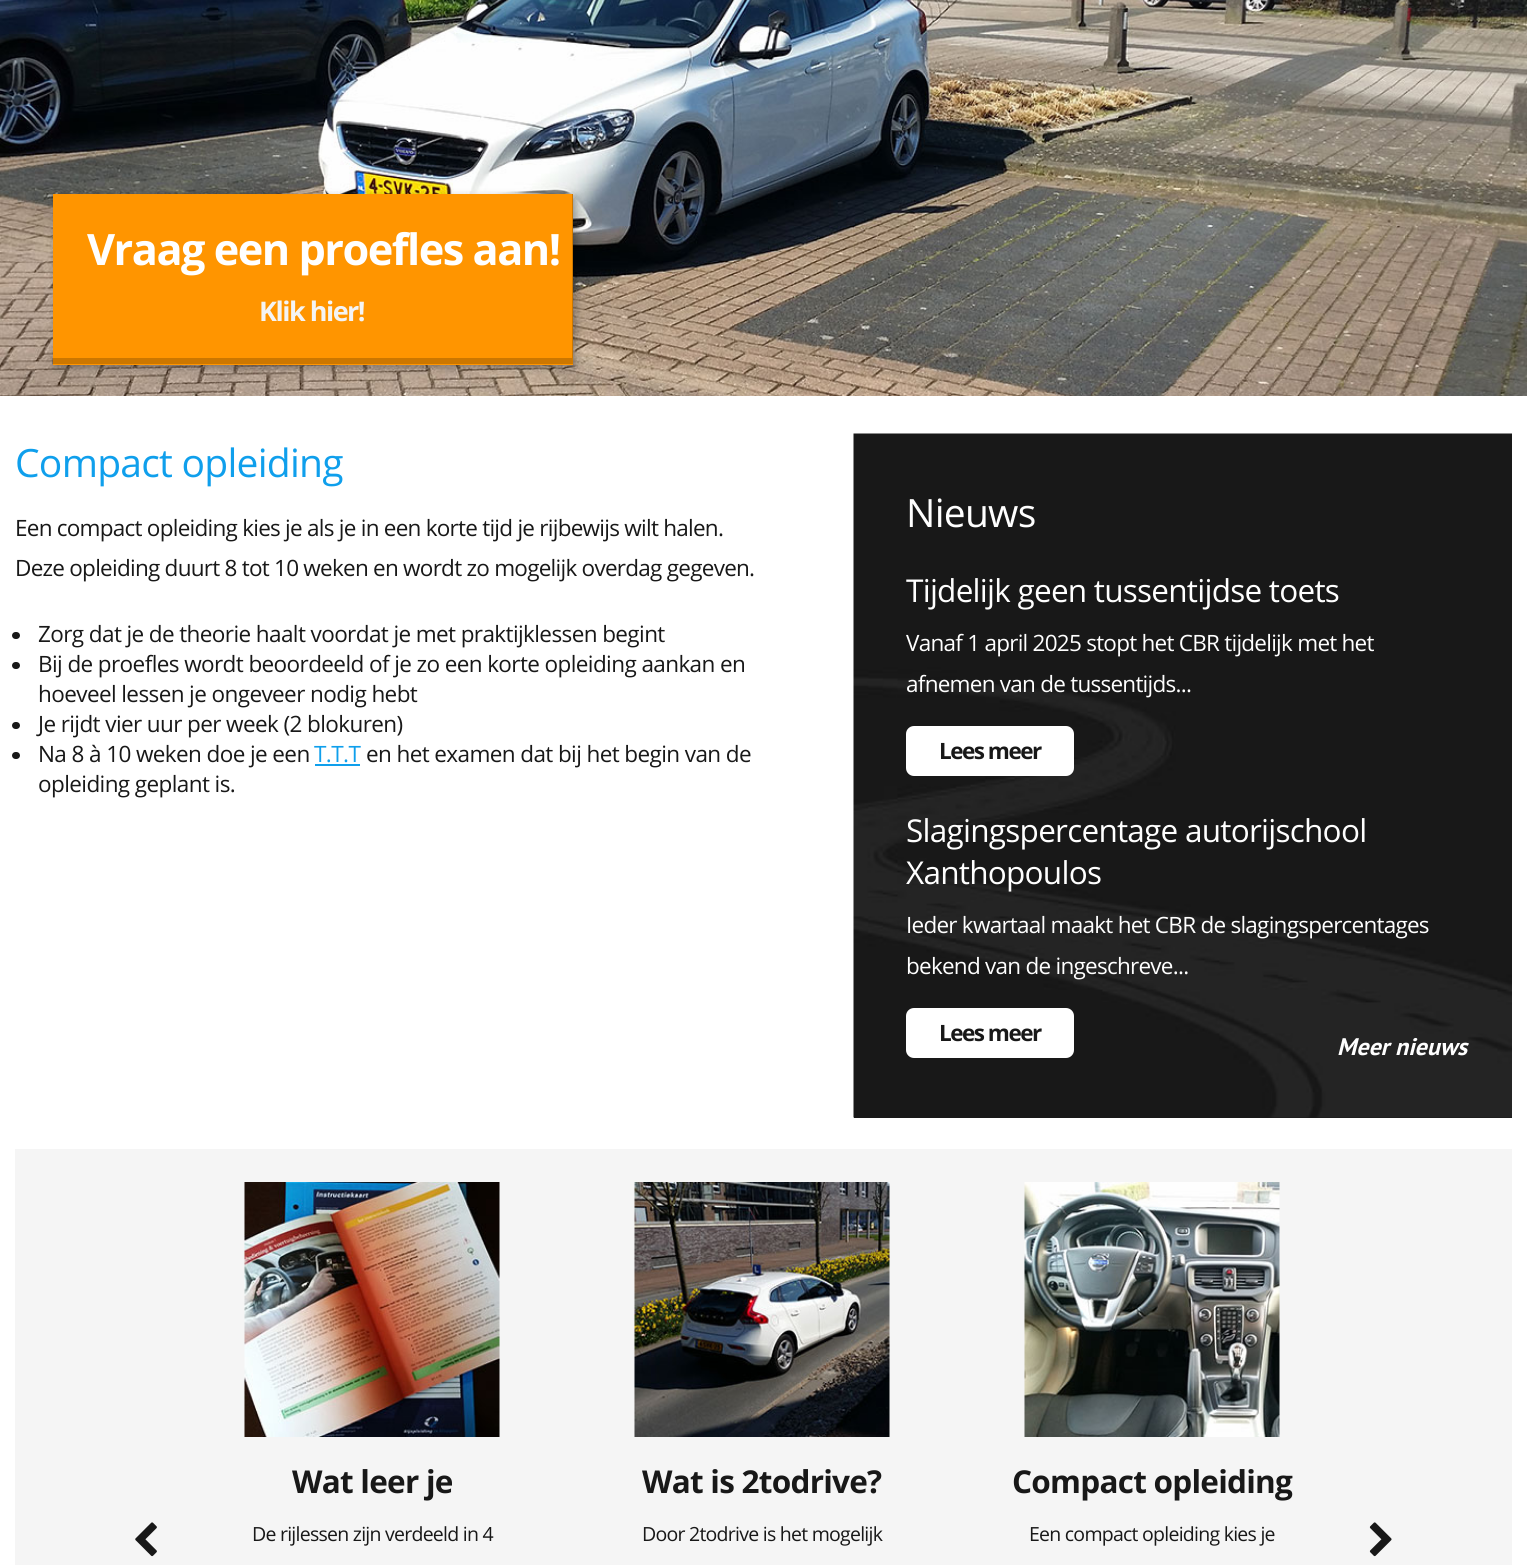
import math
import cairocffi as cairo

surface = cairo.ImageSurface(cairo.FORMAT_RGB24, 1527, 1565)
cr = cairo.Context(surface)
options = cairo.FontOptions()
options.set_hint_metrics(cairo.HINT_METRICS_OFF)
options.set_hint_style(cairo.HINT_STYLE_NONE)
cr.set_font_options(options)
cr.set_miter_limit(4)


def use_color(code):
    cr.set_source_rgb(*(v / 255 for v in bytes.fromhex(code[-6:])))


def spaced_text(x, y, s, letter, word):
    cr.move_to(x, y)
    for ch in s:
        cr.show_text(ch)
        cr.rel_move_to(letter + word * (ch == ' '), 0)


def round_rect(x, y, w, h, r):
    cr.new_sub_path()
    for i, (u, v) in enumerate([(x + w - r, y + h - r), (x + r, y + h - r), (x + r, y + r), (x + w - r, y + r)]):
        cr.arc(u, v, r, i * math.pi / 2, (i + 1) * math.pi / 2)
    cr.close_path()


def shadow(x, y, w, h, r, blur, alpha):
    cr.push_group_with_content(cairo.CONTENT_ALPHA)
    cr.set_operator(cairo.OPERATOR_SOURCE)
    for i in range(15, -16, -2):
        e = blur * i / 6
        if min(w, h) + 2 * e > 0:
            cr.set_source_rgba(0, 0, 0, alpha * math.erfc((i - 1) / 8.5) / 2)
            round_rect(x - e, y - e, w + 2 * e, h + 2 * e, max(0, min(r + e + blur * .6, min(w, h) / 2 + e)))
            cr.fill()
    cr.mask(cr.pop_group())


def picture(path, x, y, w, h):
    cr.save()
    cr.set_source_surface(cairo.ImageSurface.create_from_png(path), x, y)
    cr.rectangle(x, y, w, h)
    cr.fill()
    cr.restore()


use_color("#ffffff")
cr.paint()
picture("img1.png", 0, 0, 1527, 396)
use_color("#000000")
shadow(56, 197, 520, 171, 0, 4, 0.3)
use_color("#ff9500")
cr.rectangle(53, 194, 520, 171)
cr.fill()
use_color("#cc7700")
cr.new_path()
cr.move_to(573, 194)
cr.line_to(573, 364)
cr.line_to(572, 358)
cr.line_to(572, 194)
cr.close_path()
cr.fill()
cr.set_source_rgba(0, 0, 0, 0.2)
cr.new_path()
cr.move_to(573, 364)
cr.line_to(52, 364)
cr.line_to(52, 358)
cr.line_to(572, 358)
cr.close_path()
cr.fill()
cr.select_font_face("Open Sans", cairo.FONT_SLANT_NORMAL, cairo.FONT_WEIGHT_BOLD)
cr.set_font_size(43.25)
use_color("#ffffff")
spaced_text(87, 265, "Vraag een proefles aan!", -1.5, 0)
cr.set_font_size(27)
use_color("#f4f4f4")
spaced_text(259, 321, "Klik hier!", -1.5, 0)
cr.select_font_face("Open Sans")
cr.set_font_size(39)
use_color("#0f9fec")
spaced_text(15, 477, "Compact opleiding", -0.75, 0)
cr.set_font_size(22.5)
use_color("#181818")
spaced_text(15, 536, "Een compact opleiding kies je als je in een korte tijd je rijbewijs wilt halen.", -0.75, 0)
spaced_text(15, 576, "Deze opleiding duurt 8 tot 10 weken en wordt zo mogelijk overdag gegeven.", -0.75, 0)
round_rect(12, 632, 8, 7, 3.5)
cr.fill()
spaced_text(38, 642, "Zorg dat je de theorie haalt voordat je met praktijklessen begint", -0.6, 0)
round_rect(12, 662, 8, 7, 3.5)
cr.fill()
spaced_text(38, 672, "Bij de proefles wordt beoordeeld of je zo een korte opleiding aankan en", -0.6, 0)
spaced_text(38, 702, "hoeveel lessen je ongeveer nodig hebt", -0.6, 0)
round_rect(12, 722, 8, 7, 3.5)
cr.fill()
spaced_text(38, 732, "Je rijdt vier uur per week (2 blokuren)", -0.6, 0)
round_rect(12, 752, 8, 7, 3.5)
cr.fill()
spaced_text(38, 762, "Na 8 à 10 weken doe je een", -0.6, 0)
use_color("#0f9fec")
spaced_text(314, 762, "T.T.T", -0.6, 0)
cr.rectangle(315, 764, 45, 2)
cr.fill()
use_color("#181818")
spaced_text(366, 762, "en het examen dat bij het begin van de", -0.6, 0)
spaced_text(38, 792, "opleiding geplant is.", -0.6, 0)
cr.rectangle(854, 1117, 658, 1)
cr.fill()
picture("img2.png", 853, 433, 659, 685)
cr.set_font_size(39)
use_color("#ffffff")
spaced_text(906, 527, "Nieuws", -0.75, 0)
cr.set_font_size(31.5)
spaced_text(906, 602, "Tijdelijk geen tussentijdse toets", -0.75, 0)
cr.set_font_size(22.5)
spaced_text(906, 651, "Vanaf 1 april 2025 stopt het CBR tijdelijk met het", -0.75, 0)
spaced_text(906, 692, "afnemen van de tussentijds...", -0.75, 0)
round_rect(906, 726, 168, 50, 8)
cr.fill()
cr.select_font_face("Open Sans", cairo.FONT_SLANT_NORMAL, cairo.FONT_WEIGHT_BOLD)
use_color("#181818")
spaced_text(939, 759, "Lees meer", -1.5, 0)
cr.select_font_face("Open Sans")
cr.set_font_size(31.5)
use_color("#ffffff")
spaced_text(906, 842, "Slagingspercentage autorijschool", -0.75, 0)
spaced_text(906, 884, "Xanthopoulos", -0.75, 0)
cr.set_font_size(22.5)
spaced_text(906, 933, "Ieder kwartaal maakt het CBR de slagingspercentages", -0.75, 0)
spaced_text(906, 974, "bekend van de ingeschreve...", -0.75, 0)
round_rect(906, 1008, 168, 50, 8)
cr.fill()
cr.select_font_face("Open Sans", cairo.FONT_SLANT_NORMAL, cairo.FONT_WEIGHT_BOLD)
use_color("#181818")
spaced_text(939, 1041, "Lees meer", -1.5, 0)
cr.select_font_face("PT Sans", cairo.FONT_SLANT_ITALIC, cairo.FONT_WEIGHT_BOLD)
cr.set_font_size(24)
use_color("#ffffff")
cr.move_to(1337, 1055)
cr.show_text("Meer nieuws")
use_color("#f5f5f5")
cr.rectangle(15, 1149, 1497, 416)
cr.fill()
picture("img3.png", 135, 1522, 22, 35)
picture("img4.png", 244, 1182, 256, 255)
cr.select_font_face("Open Sans", cairo.FONT_SLANT_NORMAL, cairo.FONT_WEIGHT_BOLD)
cr.set_font_size(31.5)
use_color("#181818")
spaced_text(292, 1493, "Wat leer je", -0.75, 0)
cr.select_font_face("Open Sans")
cr.set_font_size(19.5)
spaced_text(252, 1541, "De rijlessen zijn verdeeld in 4", -0.75, 0)
picture("img5.png", 634, 1182, 256, 255)
cr.select_font_face("Open Sans", cairo.FONT_SLANT_NORMAL, cairo.FONT_WEIGHT_BOLD)
cr.set_font_size(31.5)
spaced_text(642, 1493, "Wat is 2todrive?", -0.75, 0)
cr.select_font_face("Open Sans")
cr.set_font_size(19.5)
spaced_text(642, 1541, "Door 2todrive is het mogelijk", -0.75, 0)
picture("img6.png", 1024, 1182, 256, 255)
cr.select_font_face("Open Sans", cairo.FONT_SLANT_NORMAL, cairo.FONT_WEIGHT_BOLD)
cr.set_font_size(31.5)
spaced_text(1012, 1493, "Compact opleiding", -0.75, 0)
cr.select_font_face("Open Sans")
cr.set_font_size(19.5)
spaced_text(1029, 1541, "Een compact opleiding kies je", -0.75, 0)
picture("img7.png", 1369, 1522, 23, 35)
surface.write_to_png("result.png")
